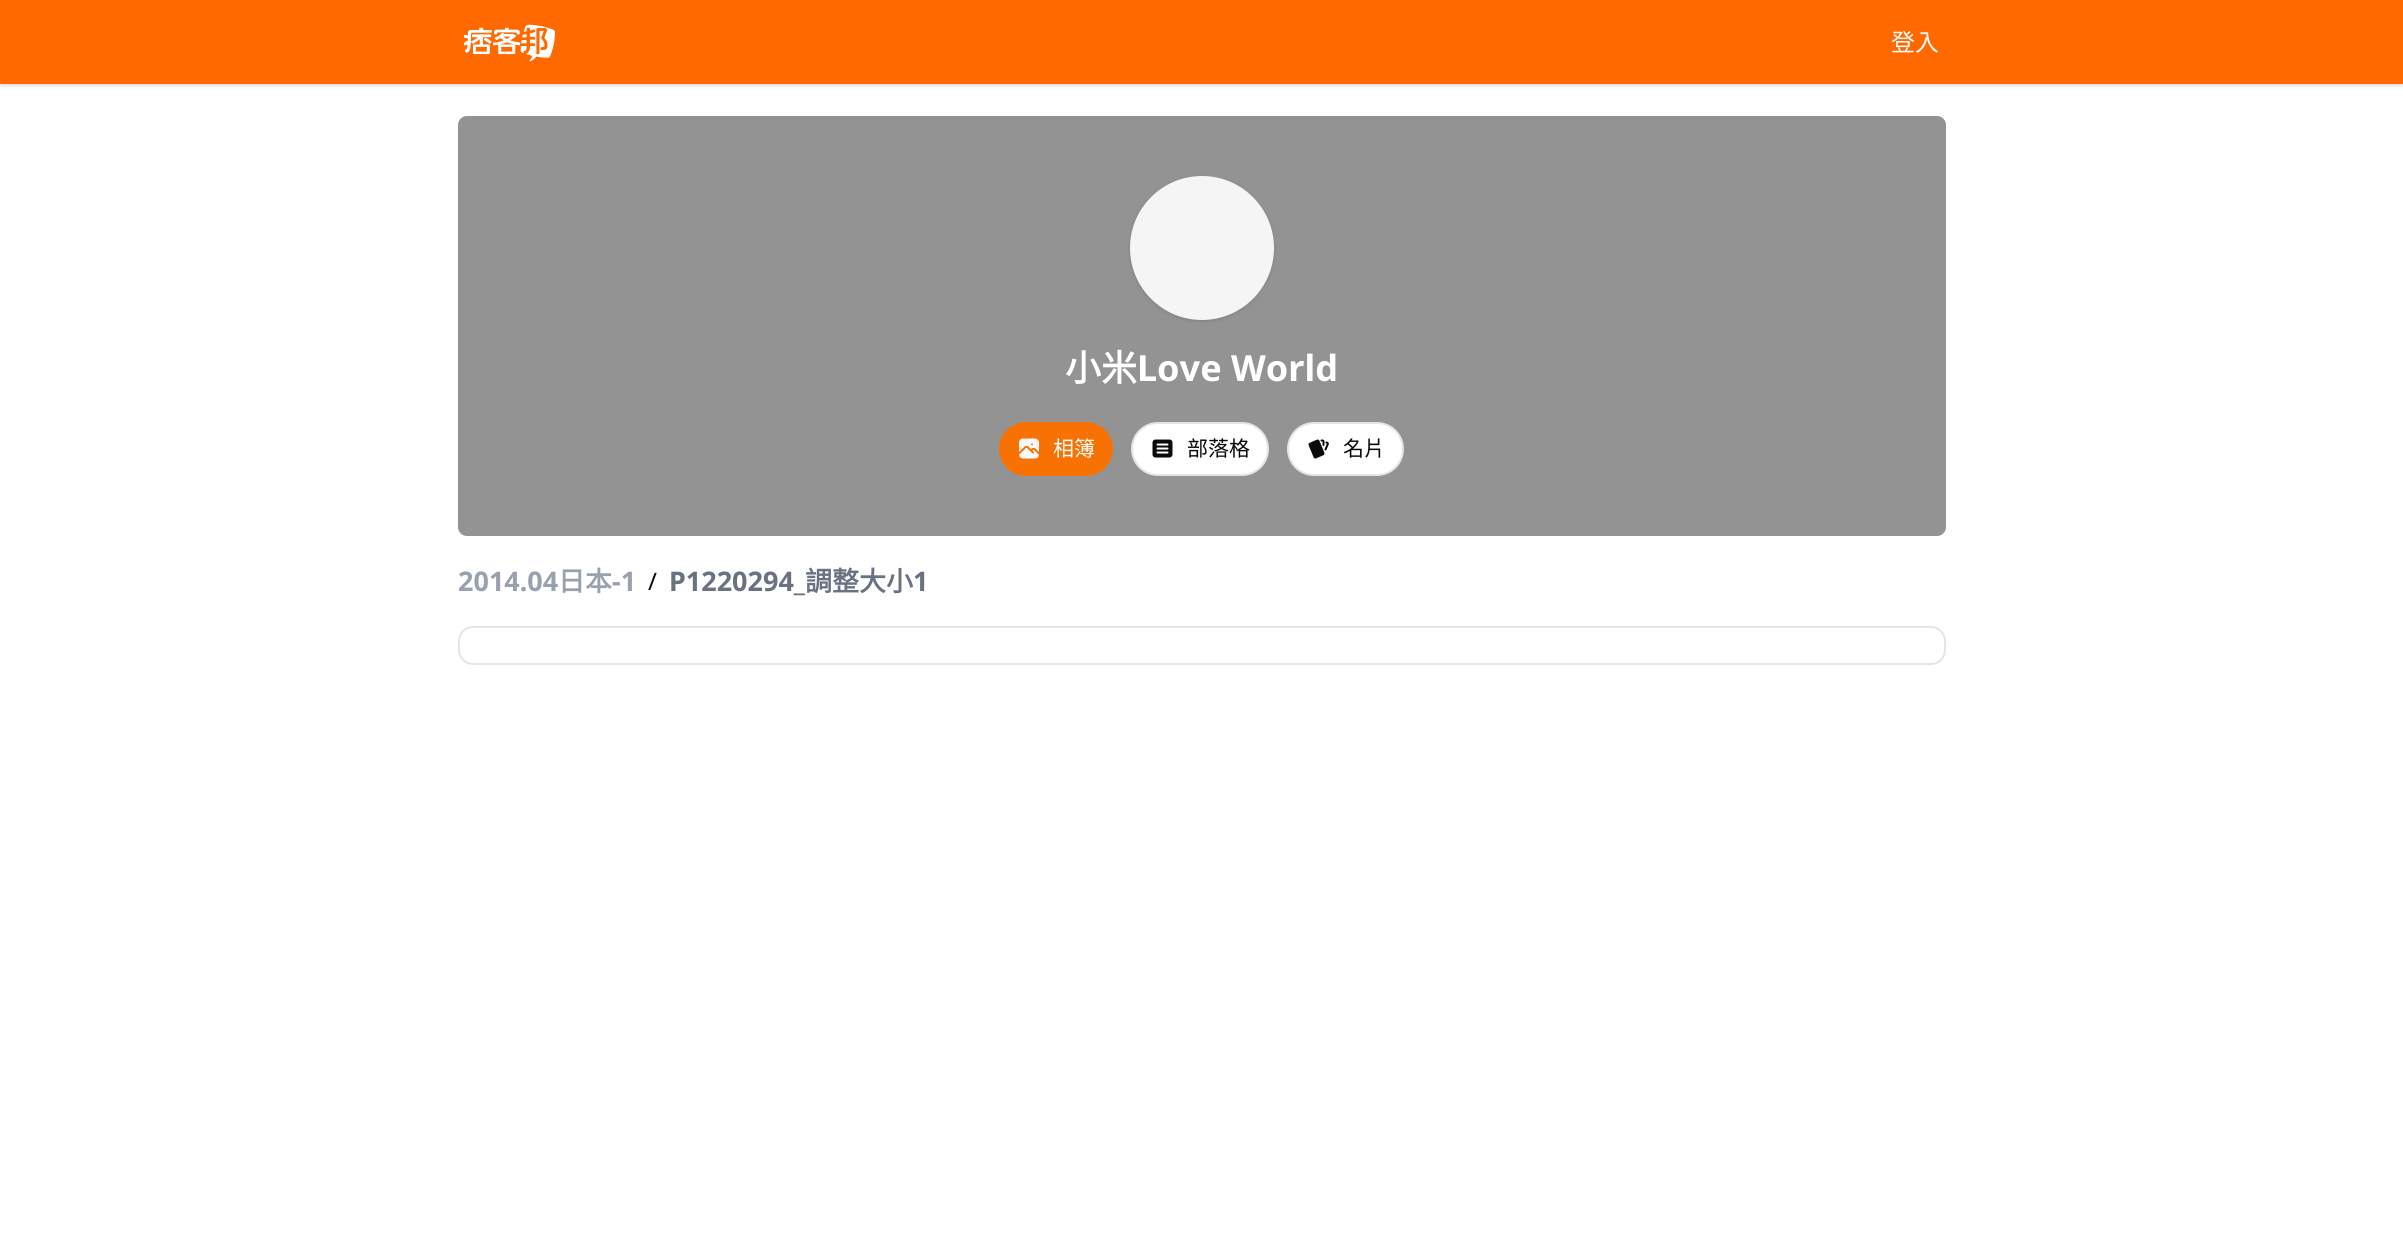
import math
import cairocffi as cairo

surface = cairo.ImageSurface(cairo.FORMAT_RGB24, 2403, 1244)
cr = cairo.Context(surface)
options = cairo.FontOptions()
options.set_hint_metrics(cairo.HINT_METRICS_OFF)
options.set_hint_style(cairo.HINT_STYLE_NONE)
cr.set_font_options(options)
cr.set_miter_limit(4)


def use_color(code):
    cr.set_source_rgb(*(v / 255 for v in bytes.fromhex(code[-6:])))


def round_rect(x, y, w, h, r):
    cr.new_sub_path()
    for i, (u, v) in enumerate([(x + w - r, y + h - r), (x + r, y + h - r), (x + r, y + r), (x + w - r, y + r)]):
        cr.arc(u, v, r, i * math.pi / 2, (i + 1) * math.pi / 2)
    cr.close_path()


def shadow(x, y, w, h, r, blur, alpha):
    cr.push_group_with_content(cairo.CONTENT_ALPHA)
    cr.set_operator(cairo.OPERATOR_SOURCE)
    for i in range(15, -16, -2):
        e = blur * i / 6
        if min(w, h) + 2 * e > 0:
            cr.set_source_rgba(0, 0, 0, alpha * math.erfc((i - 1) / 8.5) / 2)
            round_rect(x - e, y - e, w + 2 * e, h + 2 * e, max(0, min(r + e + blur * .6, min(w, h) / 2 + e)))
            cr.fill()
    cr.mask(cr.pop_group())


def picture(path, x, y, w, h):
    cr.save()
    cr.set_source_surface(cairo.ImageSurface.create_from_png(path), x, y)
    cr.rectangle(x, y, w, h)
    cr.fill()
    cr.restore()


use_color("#ffffff")
cr.paint()
use_color("#000000")
shadow(2, 3, 2400, 81, 0, 1.5, 0.1)
shadow(0, 2, 2403, 84, 0, 2, 0.1)
use_color("#ff6900")
cr.rectangle(0, 0, 2403, 84)
cr.fill()
picture("img1.png", 464, 24, 91, 38)
cr.select_font_face("Noto Sans CJK TC")
cr.set_font_size(24)
use_color("#ffffff")
cr.move_to(1891, 51)
cr.show_text("登入")
use_color("#f5f5f5")
round_rect(458, 116, 1488, 420, 9)
cr.fill()
cr.set_source_rgba(0, 0, 0, 0.4)
round_rect(458, 116, 1488, 420, 9)
cr.fill()
use_color("#000000")
shadow(1131, 179, 141, 141, 70.5, 1.5, 0.1)
shadow(1130, 177, 144, 144, 72, 2, 0.1)
use_color("#f5f5f5")
cr.arc(1202, 248, 72, 0, 2 * math.pi)
cr.fill()
cr.select_font_face("Noto Sans CJK TC", cairo.FONT_SLANT_NORMAL, cairo.FONT_WEIGHT_BOLD)
cr.set_font_size(36)
use_color("#ffffff")
cr.move_to(1065, 381)
cr.show_text("小米")
cr.select_font_face("Noto Sans", cairo.FONT_SLANT_NORMAL, cairo.FONT_WEIGHT_BOLD)
cr.move_to(1137, 381)
cr.show_text("Love World")
use_color("#f87103")
round_rect(999, 422, 114, 54, 27)
cr.fill()
picture("img2.png", 1019, 438, 20, 21)
cr.select_font_face("Noto Sans CJK TC")
cr.set_font_size(21)
use_color("#ffffff")
cr.move_to(1053, 456)
cr.show_text("相簿")
round_rect(1132, 423, 136, 52, 26)
cr.fill_preserve()
use_color("#e5e5e5")
cr.stroke()
picture("img3.png", 1152, 439, 21, 19)
use_color("#0a0a0a")
cr.move_to(1187, 456)
cr.show_text("部落格")
use_color("#ffffff")
round_rect(1288, 423, 115, 52, 26)
cr.fill_preserve()
use_color("#e5e5e5")
cr.stroke()
picture("img4.png", 1308, 439, 21, 20)
use_color("#0a0a0a")
cr.move_to(1343, 456)
cr.show_text("名片")
cr.select_font_face("Noto Sans", cairo.FONT_SLANT_NORMAL, cairo.FONT_WEIGHT_BOLD)
cr.set_font_size(27)
use_color("#99a1af")
cr.move_to(458, 591)
cr.show_text("2014.04")
cr.select_font_face("Noto Sans CJK TC", cairo.FONT_SLANT_NORMAL, cairo.FONT_WEIGHT_BOLD)
cr.move_to(558, 591)
cr.show_text("日本")
cr.select_font_face("Noto Sans", cairo.FONT_SLANT_NORMAL, cairo.FONT_WEIGHT_BOLD)
cr.move_to(612, 591)
cr.show_text("-1")
cr.select_font_face("Noto Sans")
cr.set_font_size(24)
use_color("#0a0a0a")
cr.move_to(648, 590)
cr.show_text("/")
cr.select_font_face("Noto Sans", cairo.FONT_SLANT_NORMAL, cairo.FONT_WEIGHT_BOLD)
cr.set_font_size(27)
use_color("#6a7282")
cr.move_to(669, 591)
cr.show_text("P1220294_")
cr.select_font_face("Noto Sans CJK TC", cairo.FONT_SLANT_NORMAL, cairo.FONT_WEIGHT_BOLD)
cr.move_to(805, 591)
cr.show_text("調整大小")
cr.select_font_face("Noto Sans", cairo.FONT_SLANT_NORMAL, cairo.FONT_WEIGHT_BOLD)
cr.move_to(913, 591)
cr.show_text("1")
round_rect(459, 627, 1486, 37, 14)
use_color("#e5e5e5")
cr.stroke()
surface.write_to_png("result.png")
